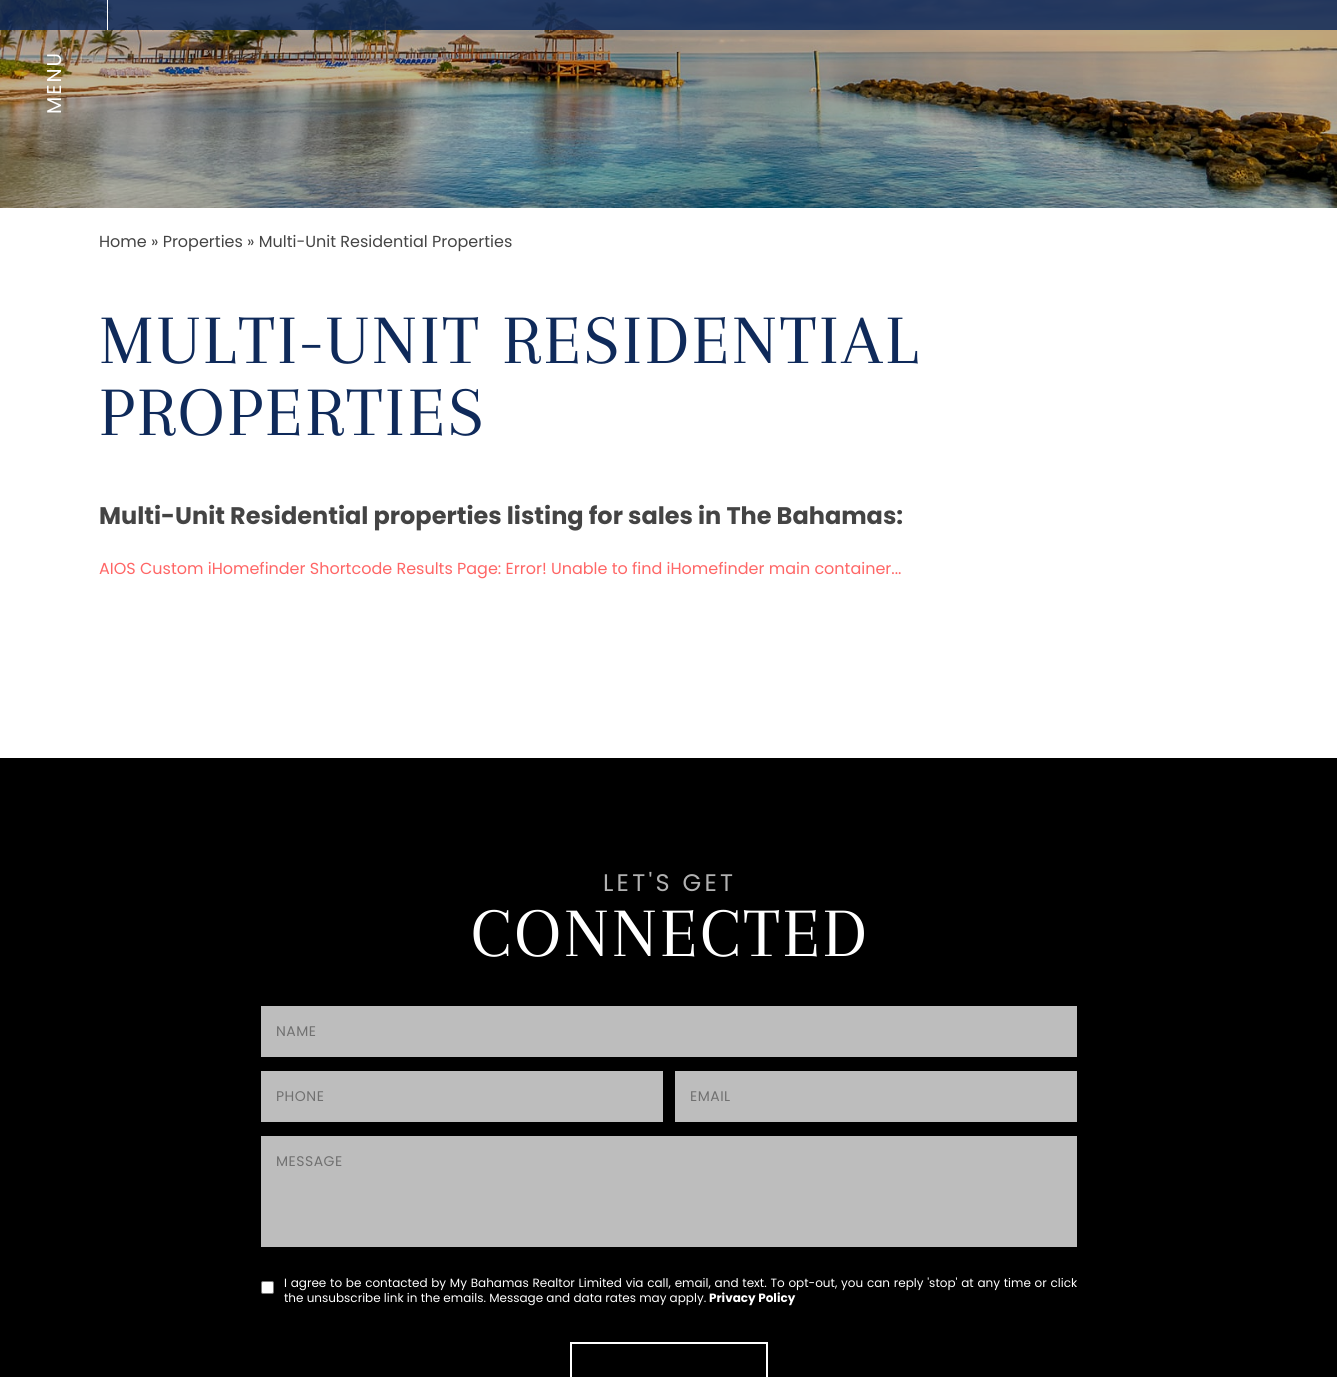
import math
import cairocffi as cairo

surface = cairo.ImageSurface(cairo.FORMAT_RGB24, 1337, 1377)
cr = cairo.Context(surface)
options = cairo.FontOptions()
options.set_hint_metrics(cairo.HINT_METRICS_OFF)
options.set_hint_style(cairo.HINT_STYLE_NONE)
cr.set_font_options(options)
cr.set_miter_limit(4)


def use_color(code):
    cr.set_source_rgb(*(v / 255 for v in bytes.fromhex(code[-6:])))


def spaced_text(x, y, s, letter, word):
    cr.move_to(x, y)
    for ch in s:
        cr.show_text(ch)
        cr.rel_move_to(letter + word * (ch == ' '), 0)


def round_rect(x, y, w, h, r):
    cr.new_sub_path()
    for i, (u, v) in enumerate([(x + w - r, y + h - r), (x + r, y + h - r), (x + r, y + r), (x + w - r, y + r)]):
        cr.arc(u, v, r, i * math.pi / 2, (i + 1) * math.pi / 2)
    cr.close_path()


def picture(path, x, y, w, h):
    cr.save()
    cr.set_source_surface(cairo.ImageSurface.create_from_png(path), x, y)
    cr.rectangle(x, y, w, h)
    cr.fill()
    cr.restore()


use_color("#ffffff")
cr.paint()
picture("img1.png", 0, 0, 1337, 208)
cr.set_source_rgba(0.059, 0.165, 0.353, 0.85)
cr.rectangle(0, 0, 1337, 30)
cr.fill()
use_color("#ffffff")
cr.rectangle(107, 0, 1, 30)
cr.fill()
cr.select_font_face("Poppins")
cr.set_font_size(20)
cr.save()
cr.translate(61, 114)
cr.rotate(-90 * math.pi / 180)
spaced_text(0, 0, "MENU", 2, 0)
cr.restore()
cr.set_font_size(16)
use_color("#444444")
cr.move_to(99, 247)
cr.show_text("Home » Properties » Multi-Unit Residential Properties")
cr.select_font_face("Arapey")
cr.set_font_size(72)
use_color("#0f2a5a")
spaced_text(99, 363, "MULTI-UNIT RESIDENTIAL", 2.9, 0)
spaced_text(99, 435, "PROPERTIES", 2.9, 0)
cr.select_font_face("Poppins", cairo.FONT_SLANT_NORMAL, cairo.FONT_WEIGHT_BOLD)
cr.set_font_size(24)
use_color("#444444")
cr.move_to(99, 524)
cr.show_text("Multi-Unit Residential properties listing for sales in The Bahamas:")
cr.select_font_face("Poppins")
cr.set_font_size(16)
use_color("#ff6666")
cr.move_to(99, 574)
cr.show_text("AIOS Custom iHomefinder Shortcode Results Page: Error! Unable to find iHomefinder main container...")
use_color("#000000")
cr.rectangle(0, 758, 1337, 619)
cr.fill()
cr.set_font_size(24)
use_color("#b1b1b1")
spaced_text(603, 891, "LET'S GET", 3.25, 0)
cr.select_font_face("Arapey")
cr.set_font_size(72)
use_color("#ffffff")
spaced_text(471, 956, "CONNECTED", 2.9, 0)
use_color("#bdbdbd")
cr.rectangle(261, 1006, 816, 51)
cr.fill()
cr.select_font_face("Poppins")
cr.set_font_size(14)
use_color("#707070")
spaced_text(276, 1036, "NAME", 0.5, 0)
use_color("#bdbdbd")
cr.rectangle(261, 1071, 402, 51)
cr.fill()
use_color("#707070")
spaced_text(276, 1101, "PHONE", 0.5, 0)
use_color("#bdbdbd")
cr.rectangle(675, 1071, 402, 51)
cr.fill()
use_color("#707070")
spaced_text(690, 1101, "EMAIL", 0.5, 0)
use_color("#bdbdbd")
cr.rectangle(261, 1136, 816, 111)
cr.fill()
use_color("#707070")
spaced_text(276, 1166, "MESSAGE", 0.5, 0)
use_color("#ffffff")
round_rect(261.5, 1281.5, 12, 12, 1.5)
cr.fill_preserve()
use_color("#767676")
cr.set_line_width(1)
cr.stroke()
cr.set_font_size(12)
use_color("#ffffff")
spaced_text(284, 1287, "I agree to be contacted by My Bahamas Realtor Limited via call, email, and text. To opt-out, you can reply 'stop' at any time or click", 0, 0.55)
cr.move_to(284, 1302)
cr.show_text("the unsubscribe link in the emails. Message and data rates may apply.")
cr.select_font_face("Poppins", cairo.FONT_SLANT_NORMAL, cairo.FONT_WEIGHT_BOLD)
cr.move_to(709, 1302)
cr.show_text("Privacy Policy")
cr.rectangle(571, 1343, 196, 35)
cr.set_line_width(2)
cr.stroke()
surface.write_to_png("result.png")
